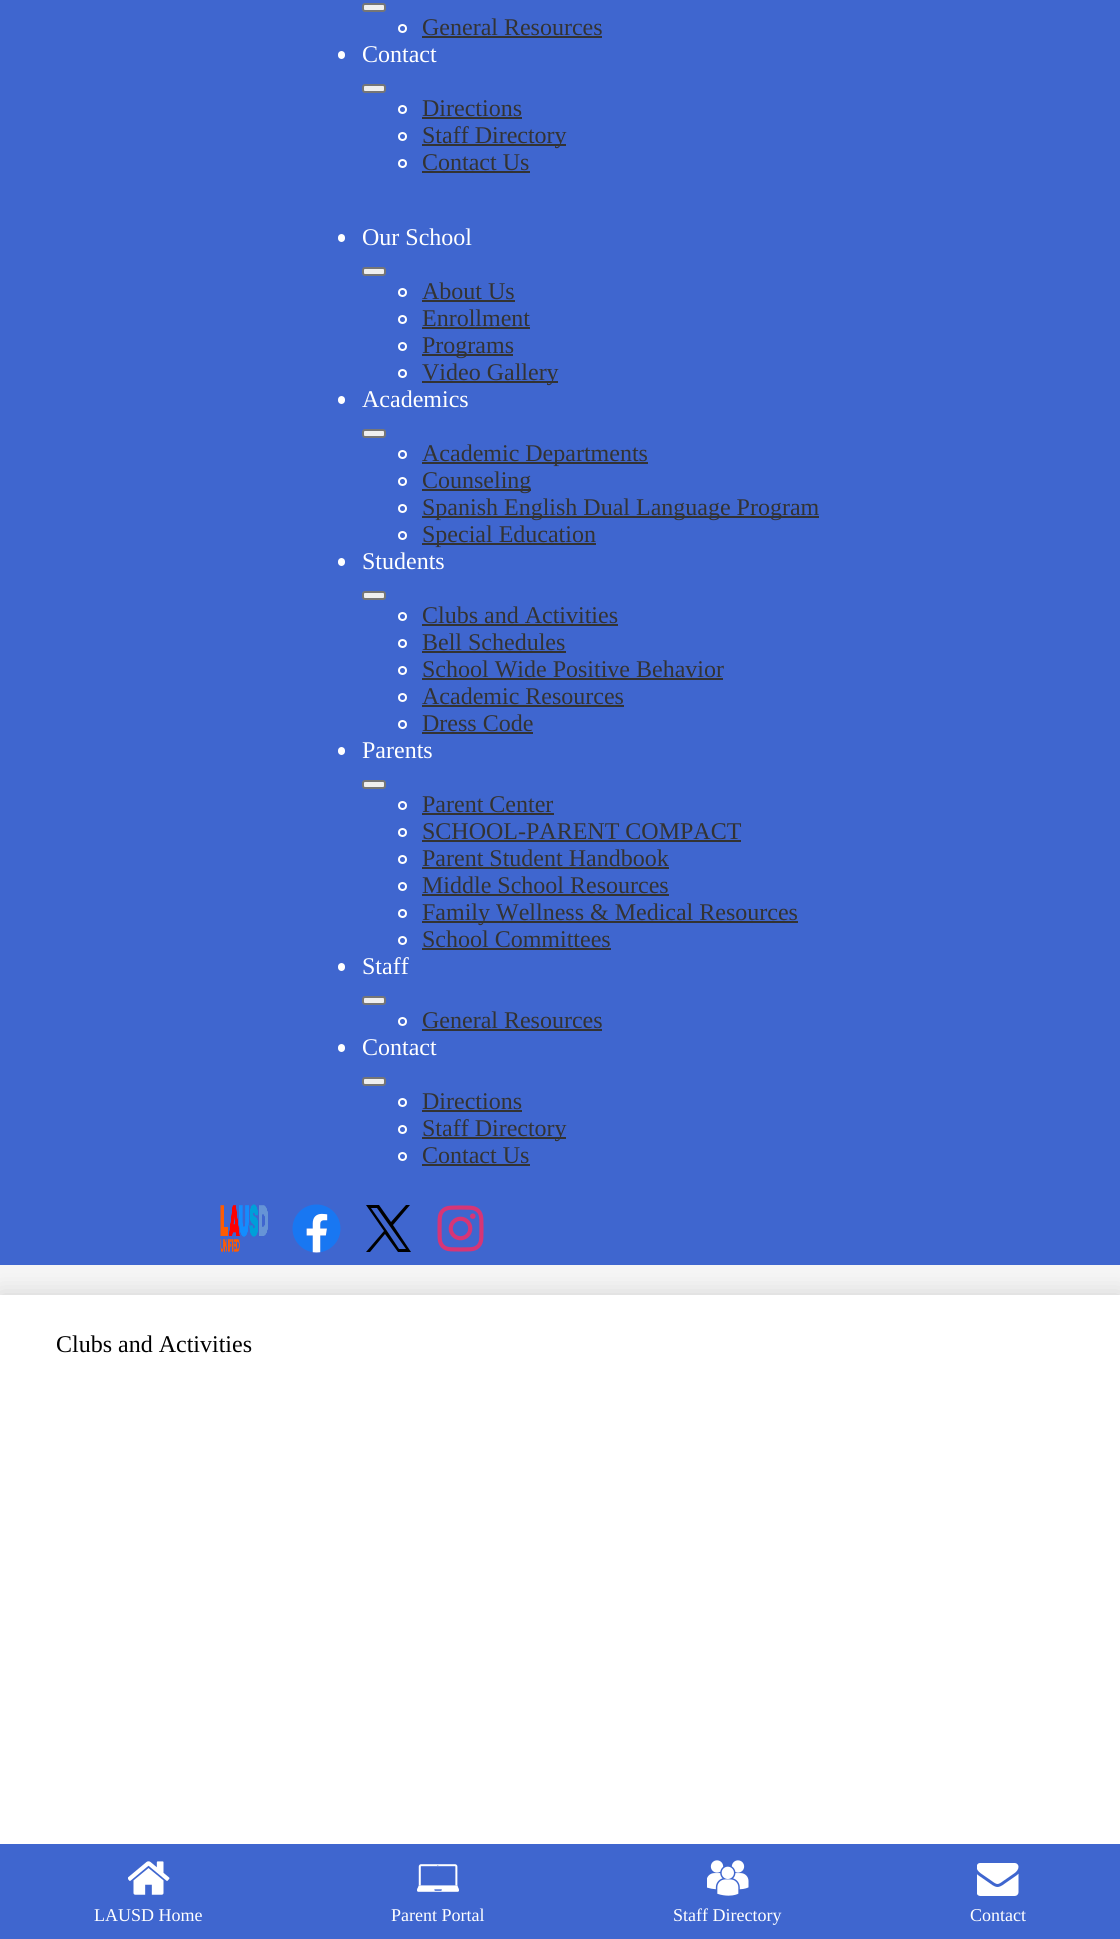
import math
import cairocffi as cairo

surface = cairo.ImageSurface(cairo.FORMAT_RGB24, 1120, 1939)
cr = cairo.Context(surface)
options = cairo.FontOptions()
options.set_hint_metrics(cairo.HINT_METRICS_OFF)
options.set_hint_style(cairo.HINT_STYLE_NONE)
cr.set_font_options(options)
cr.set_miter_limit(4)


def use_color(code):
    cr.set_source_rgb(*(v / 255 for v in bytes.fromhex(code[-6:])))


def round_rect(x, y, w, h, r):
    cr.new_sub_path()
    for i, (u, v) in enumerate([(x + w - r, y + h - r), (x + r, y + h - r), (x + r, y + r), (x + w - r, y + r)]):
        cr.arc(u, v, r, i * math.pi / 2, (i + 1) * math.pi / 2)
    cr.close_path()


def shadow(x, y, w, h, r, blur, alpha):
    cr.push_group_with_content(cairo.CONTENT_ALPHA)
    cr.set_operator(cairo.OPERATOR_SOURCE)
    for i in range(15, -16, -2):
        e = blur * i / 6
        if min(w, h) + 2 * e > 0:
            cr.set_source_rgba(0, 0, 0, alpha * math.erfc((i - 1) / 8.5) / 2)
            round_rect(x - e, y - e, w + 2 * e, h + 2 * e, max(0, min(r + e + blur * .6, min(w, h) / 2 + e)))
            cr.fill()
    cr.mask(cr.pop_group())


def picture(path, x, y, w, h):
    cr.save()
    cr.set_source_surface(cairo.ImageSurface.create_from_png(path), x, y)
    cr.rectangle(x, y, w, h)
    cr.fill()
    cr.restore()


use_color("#f5f5f5")
cr.paint()
use_color("#000000")
shadow(0, 1295, 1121, 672, 0, 12, 0.15)
use_color("#3f66cf")
cr.rectangle(0, 0, 1120, 1265)
cr.fill()
use_color("#efefef")
round_rect(363, 4, 22, 7, 2)
cr.fill_preserve()
use_color("#767676")
cr.stroke()
cr.arc(402.5, 28.5, 3.5, 0, 2 * math.pi)
use_color("#ffffff")
cr.stroke()
cr.select_font_face("Liberation Serif")
cr.set_font_size(24)
use_color("#333333")
cr.move_to(422, 35)
cr.show_text("General Resources")
cr.rectangle(422, 36, 180, 2)
cr.fill()
use_color("#ffffff")
round_rect(338, 51, 7, 8, 3.5)
cr.fill()
cr.move_to(362, 62)
cr.show_text("Contact")
use_color("#efefef")
round_rect(363, 85, 22, 7, 2)
cr.fill_preserve()
use_color("#767676")
cr.stroke()
cr.arc(402.5, 109.5, 3.5, 0, 2 * math.pi)
use_color("#ffffff")
cr.stroke()
use_color("#333333")
cr.move_to(422, 116)
cr.show_text("Directions")
cr.rectangle(422, 117, 100, 2)
cr.fill()
cr.arc(402.5, 136.5, 3.5, 0, 2 * math.pi)
use_color("#ffffff")
cr.stroke()
use_color("#333333")
cr.rectangle(422, 144, 144, 2)
cr.fill()
cr.move_to(422, 143)
cr.show_text("Staff Directory")
cr.new_path()
cr.arc(402.5, 163.5, 3.5, 0, 2 * math.pi)
use_color("#ffffff")
cr.stroke()
use_color("#333333")
cr.move_to(422, 170)
cr.show_text("Contact Us")
cr.rectangle(422, 171, 108, 2)
cr.fill()
use_color("#ffffff")
round_rect(338, 234, 7, 8, 3.5)
cr.fill()
cr.move_to(362, 245)
cr.show_text("Our School")
use_color("#efefef")
round_rect(363, 268, 22, 7, 2)
cr.fill_preserve()
use_color("#767676")
cr.stroke()
cr.arc(402.5, 292.5, 3.5, 0, 2 * math.pi)
use_color("#ffffff")
cr.stroke()
use_color("#333333")
cr.move_to(422, 299)
cr.show_text("About Us")
cr.rectangle(422, 300, 93, 2)
cr.fill()
cr.arc(402.5, 319.5, 3.5, 0, 2 * math.pi)
use_color("#ffffff")
cr.stroke()
use_color("#333333")
cr.move_to(422, 326)
cr.show_text("Enrollment")
cr.rectangle(422, 327, 108, 2)
cr.fill()
cr.arc(402.5, 346.5, 3.5, 0, 2 * math.pi)
use_color("#ffffff")
cr.stroke()
use_color("#333333")
cr.rectangle(422, 354, 91, 2)
cr.fill()
cr.move_to(422, 353)
cr.show_text("Programs")
cr.new_path()
cr.arc(402.5, 373.5, 3.5, 0, 2 * math.pi)
use_color("#ffffff")
cr.stroke()
use_color("#333333")
cr.rectangle(422, 381, 136, 2)
cr.fill()
cr.move_to(422, 380)
cr.show_text("Video Gallery")
use_color("#ffffff")
round_rect(338, 396, 7, 8, 3.5)
cr.fill()
cr.move_to(362, 407)
cr.show_text("Academics")
use_color("#efefef")
round_rect(363, 430, 22, 7, 2)
cr.fill_preserve()
use_color("#767676")
cr.stroke()
cr.arc(402.5, 454.5, 3.5, 0, 2 * math.pi)
use_color("#ffffff")
cr.stroke()
use_color("#333333")
cr.rectangle(422, 462, 226, 2)
cr.fill()
cr.move_to(422, 461)
cr.show_text("Academic Departments")
cr.new_path()
cr.arc(402.5, 481.5, 3.5, 0, 2 * math.pi)
use_color("#ffffff")
cr.stroke()
use_color("#333333")
cr.rectangle(422, 489, 109, 2)
cr.fill()
cr.move_to(422, 488)
cr.show_text("Counseling")
cr.new_path()
cr.arc(402.5, 508.5, 3.5, 0, 2 * math.pi)
use_color("#ffffff")
cr.stroke()
use_color("#333333")
cr.rectangle(422, 516, 397, 2)
cr.fill()
cr.move_to(422, 515)
cr.show_text("Spanish English Dual Language Program")
cr.new_path()
cr.arc(402.5, 535.5, 3.5, 0, 2 * math.pi)
use_color("#ffffff")
cr.stroke()
use_color("#333333")
cr.rectangle(422, 543, 174, 2)
cr.fill()
cr.move_to(422, 542)
cr.show_text("Special Education")
use_color("#ffffff")
round_rect(338, 558, 7, 8, 3.5)
cr.fill()
cr.move_to(362, 569)
cr.show_text("Students")
use_color("#efefef")
round_rect(363, 592, 22, 7, 2)
cr.fill_preserve()
use_color("#767676")
cr.stroke()
cr.arc(402.5, 616.5, 3.5, 0, 2 * math.pi)
use_color("#ffffff")
cr.stroke()
use_color("#333333")
cr.move_to(422, 623)
cr.show_text("Clubs and Activities")
cr.rectangle(422, 624, 196, 2)
cr.fill()
cr.arc(402.5, 643.5, 3.5, 0, 2 * math.pi)
use_color("#ffffff")
cr.stroke()
use_color("#333333")
cr.move_to(422, 650)
cr.show_text("Bell Schedules")
cr.rectangle(422, 651, 144, 2)
cr.fill()
cr.arc(402.5, 670.5, 3.5, 0, 2 * math.pi)
use_color("#ffffff")
cr.stroke()
use_color("#333333")
cr.move_to(422, 677)
cr.show_text("School Wide Positive Behavior")
cr.rectangle(422, 678, 301, 2)
cr.fill()
cr.arc(402.5, 697.5, 3.5, 0, 2 * math.pi)
use_color("#ffffff")
cr.stroke()
use_color("#333333")
cr.move_to(422, 704)
cr.show_text("Academic Resources")
cr.rectangle(422, 705, 202, 2)
cr.fill()
cr.arc(402.5, 724.5, 3.5, 0, 2 * math.pi)
use_color("#ffffff")
cr.stroke()
use_color("#333333")
cr.move_to(422, 731)
cr.show_text("Dress Code")
cr.rectangle(422, 732, 111, 2)
cr.fill()
use_color("#ffffff")
round_rect(338, 747, 7, 8, 3.5)
cr.fill()
cr.move_to(362, 758)
cr.show_text("Parents")
use_color("#efefef")
round_rect(363, 781, 22, 7, 2)
cr.fill_preserve()
use_color("#767676")
cr.stroke()
cr.arc(402.5, 805.5, 3.5, 0, 2 * math.pi)
use_color("#ffffff")
cr.stroke()
use_color("#333333")
cr.move_to(422, 812)
cr.show_text("Parent Center")
cr.rectangle(422, 813, 132, 2)
cr.fill()
cr.arc(402.5, 832.5, 3.5, 0, 2 * math.pi)
use_color("#ffffff")
cr.stroke()
use_color("#333333")
cr.move_to(422, 839)
cr.show_text("SCHOOL-PARENT COMPACT")
cr.rectangle(422, 840, 319, 2)
cr.fill()
cr.arc(402.5, 859.5, 3.5, 0, 2 * math.pi)
use_color("#ffffff")
cr.stroke()
use_color("#333333")
cr.move_to(422, 866)
cr.show_text("Parent Student Handbook")
cr.rectangle(422, 867, 247, 2)
cr.fill()
cr.arc(402.5, 886.5, 3.5, 0, 2 * math.pi)
use_color("#ffffff")
cr.stroke()
use_color("#333333")
cr.move_to(422, 893)
cr.show_text("Middle School Resources")
cr.rectangle(422, 894, 247, 2)
cr.fill()
cr.arc(402.5, 913.5, 3.5, 0, 2 * math.pi)
use_color("#ffffff")
cr.stroke()
use_color("#333333")
cr.rectangle(422, 921, 376, 2)
cr.fill()
cr.move_to(422, 920)
cr.show_text("Family Wellness & Medical Resources")
cr.new_path()
cr.arc(402.5, 940.5, 3.5, 0, 2 * math.pi)
use_color("#ffffff")
cr.stroke()
use_color("#333333")
cr.move_to(422, 947)
cr.show_text("School Committees")
cr.rectangle(422, 948, 189, 2)
cr.fill()
use_color("#ffffff")
round_rect(338, 963, 7, 8, 3.5)
cr.fill()
cr.move_to(362, 974)
cr.show_text("Staff")
use_color("#efefef")
round_rect(363, 997, 22, 7, 2)
cr.fill_preserve()
use_color("#767676")
cr.stroke()
cr.arc(402.5, 1021.5, 3.5, 0, 2 * math.pi)
use_color("#ffffff")
cr.stroke()
use_color("#333333")
cr.move_to(422, 1028)
cr.show_text("General Resources")
cr.rectangle(422, 1029, 180, 2)
cr.fill()
use_color("#ffffff")
round_rect(338, 1044, 7, 8, 3.5)
cr.fill()
cr.move_to(362, 1055)
cr.show_text("Contact")
use_color("#efefef")
round_rect(363, 1078, 22, 7, 2)
cr.fill_preserve()
use_color("#767676")
cr.stroke()
cr.arc(402.5, 1102.5, 3.5, 0, 2 * math.pi)
use_color("#ffffff")
cr.stroke()
use_color("#333333")
cr.move_to(422, 1109)
cr.show_text("Directions")
cr.rectangle(422, 1110, 100, 2)
cr.fill()
cr.arc(402.5, 1129.5, 3.5, 0, 2 * math.pi)
use_color("#ffffff")
cr.stroke()
use_color("#333333")
cr.rectangle(422, 1137, 144, 2)
cr.fill()
cr.move_to(422, 1136)
cr.show_text("Staff Directory")
cr.new_path()
cr.arc(402.5, 1156.5, 3.5, 0, 2 * math.pi)
use_color("#ffffff")
cr.stroke()
use_color("#333333")
cr.move_to(422, 1163)
cr.show_text("Contact Us")
cr.rectangle(422, 1164, 108, 2)
cr.fill()
picture("img1.png", 220, 1204, 48, 48)
picture("img2.png", 292, 1204, 49, 49)
use_color("#000000")
cr.new_path()
cr.move_to(393, 1225)
cr.line_to(410, 1205)
cr.line_to(406, 1205)
cr.line_to(391, 1222)
cr.line_to(379, 1205)
cr.line_to(366, 1205)
cr.line_to(384, 1231)
cr.line_to(366, 1252)
cr.line_to(370, 1252)
cr.line_to(385, 1234)
cr.line_to(398, 1252)
cr.line_to(411, 1252)
cr.close_path()
cr.move_to(387, 1231)
cr.line_to(371, 1208)
cr.line_to(377, 1208)
cr.line_to(406, 1249)
cr.line_to(399, 1249)
cr.close_path()
cr.fill()
picture("img3.png", 437, 1205, 47, 47)
use_color("#ffffff")
cr.rectangle(0, 1295, 1120, 549)
cr.fill()
use_color("#000000")
cr.move_to(56, 1352)
cr.show_text("Clubs and Activities")
use_color("#3f66cf")
cr.rectangle(0, 1844, 1120, 95)
cr.fill()
picture("img4.png", 128, 1861, 42, 34)
cr.set_font_size(18)
use_color("#ffffff")
cr.move_to(94, 1921)
cr.show_text("LAUSD Home")
picture("img5.png", 417, 1864, 42, 28)
cr.move_to(391, 1921)
cr.show_text("Parent Portal")
picture("img6.png", 707, 1860, 42, 36)
cr.move_to(673, 1921)
cr.show_text("Staff Directory")
picture("img7.png", 977, 1863, 42, 33)
cr.move_to(970, 1921)
cr.show_text("Contact")
surface.write_to_png("result.png")
